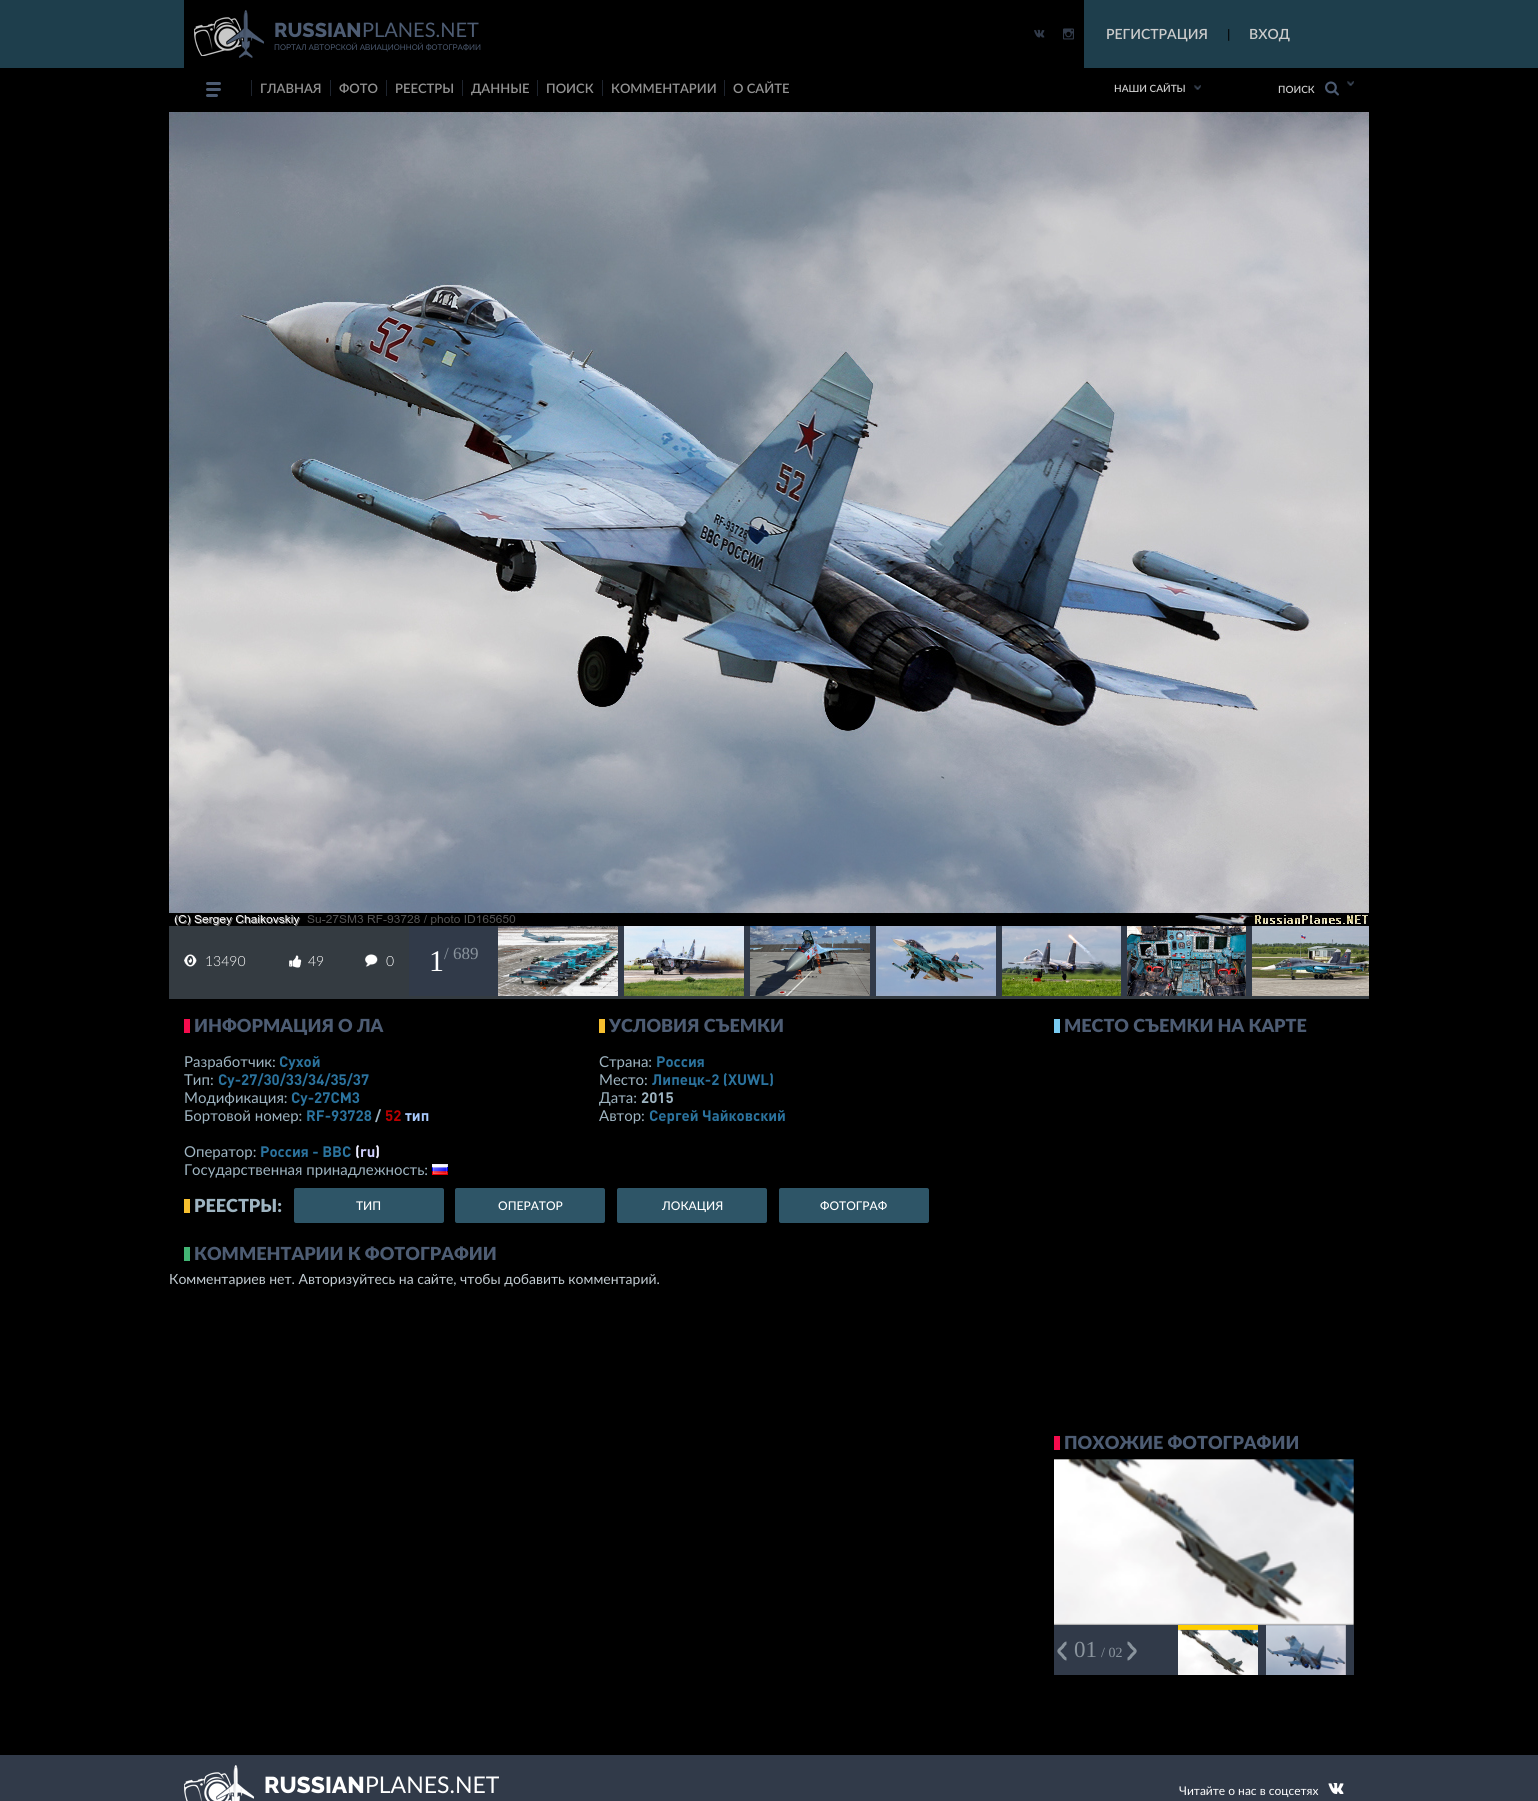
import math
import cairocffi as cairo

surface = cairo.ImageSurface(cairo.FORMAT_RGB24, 1538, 1801)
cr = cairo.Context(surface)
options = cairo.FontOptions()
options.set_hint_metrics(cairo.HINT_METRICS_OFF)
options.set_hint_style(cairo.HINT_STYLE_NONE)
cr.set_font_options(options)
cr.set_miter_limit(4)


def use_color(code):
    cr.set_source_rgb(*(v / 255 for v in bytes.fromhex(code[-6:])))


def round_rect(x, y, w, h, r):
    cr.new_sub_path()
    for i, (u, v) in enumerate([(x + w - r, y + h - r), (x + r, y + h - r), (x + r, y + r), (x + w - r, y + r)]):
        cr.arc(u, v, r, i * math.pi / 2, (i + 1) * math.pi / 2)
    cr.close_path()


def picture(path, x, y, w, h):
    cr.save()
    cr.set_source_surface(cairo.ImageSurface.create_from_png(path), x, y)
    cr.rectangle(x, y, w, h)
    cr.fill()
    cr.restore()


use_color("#000000")
cr.paint()
use_color("#1e3e4c")
cr.rectangle(0, 0, 1538, 68)
cr.fill()
use_color("#000000")
cr.rectangle(184, 0, 900, 68)
cr.fill()
picture("img1.png", 194, 10, 70, 48)
cr.select_font_face("Raleway ExtraBold")
cr.set_font_size(20)
use_color("#4d5c73")
cr.move_to(274, 37)
cr.show_text("RUSSIAN")
cr.select_font_face("Lato")
cr.move_to(362, 37)
cr.show_text("PLANES.NET")
cr.select_font_face("Raleway Medium")
cr.set_font_size(8)
cr.move_to(274, 50)
cr.show_text("ПОРТАЛ АВТОРСКОЙ АВИАЦИОННОЙ ФОТОГРАФИИ")
picture("img2.png", 1034, 29, 11, 9)
picture("img3.png", 1063, 28, 11, 12)
cr.select_font_face("Lato SemiBold")
cr.set_font_size(14)
use_color("#cccccc")
cr.move_to(1106, 39)
cr.show_text("РЕГИСТРАЦИЯ")
cr.select_font_face("Roboto")
use_color("#000000")
cr.move_to(1227, 39)
cr.show_text("|")
cr.select_font_face("Lato SemiBold")
use_color("#cccccc")
cr.move_to(1249, 39)
cr.show_text("ВХОД")
use_color("#4c5b72")
round_rect(206, 82, 15, 3, 1.5)
cr.fill()
round_rect(206, 88, 15, 3, 1.5)
cr.fill()
round_rect(206, 94, 12, 3, 1.5)
cr.fill()
use_color("#1e242e")
cr.rectangle(251, 80, 1, 16)
cr.fill()
cr.set_font_size(13)
use_color("#929292")
cr.move_to(260, 93)
cr.show_text("ГЛАВНАЯ")
use_color("#1e242e")
cr.rectangle(330, 80, 1, 16)
cr.fill()
use_color("#929292")
cr.move_to(339, 93)
cr.show_text("ФОТО")
use_color("#1e242e")
cr.rectangle(386, 80, 1, 16)
cr.fill()
use_color("#929292")
cr.move_to(395, 93)
cr.show_text("РЕЕСТРЫ")
use_color("#1e242e")
cr.rectangle(462, 80, 1, 16)
cr.fill()
use_color("#929292")
cr.move_to(471, 93)
cr.show_text("ДАННЫЕ")
use_color("#1e242e")
cr.rectangle(537, 80, 1, 16)
cr.fill()
use_color("#929292")
cr.move_to(546, 93)
cr.show_text("ПОИСК")
use_color("#1e242e")
cr.rectangle(602, 80, 1, 16)
cr.fill()
use_color("#929292")
cr.move_to(611, 93)
cr.show_text("КОММЕНТАРИИ")
use_color("#1e242e")
cr.rectangle(724, 80, 1, 16)
cr.fill()
use_color("#929292")
cr.move_to(733, 93)
cr.show_text("О САЙТЕ")
cr.set_font_size(10)
use_color("#cccccc")
cr.move_to(1114, 92)
cr.show_text("НАШИ САЙТЫ")
picture("img4.png", 1194, 85, 7, 5)
picture("img5.png", 1325, 81, 14, 15)
picture("img4.png", 1347, 81, 7, 5)
cr.move_to(1278, 93)
cr.show_text("ПОИСК")
picture("img6.png", 169, 112, 1200, 814)
use_color("#313a49")
cr.rectangle(409, 926, 843, 70)
cr.fill()
use_color("#343b41")
cr.rectangle(169, 926, 240, 70)
cr.fill()
picture("img7.png", 184, 954, 13, 13)
cr.select_font_face("Lato Light")
cr.set_font_size(14)
use_color("#ffffff")
cr.move_to(205, 966)
cr.show_text("13490")
picture("img8.png", 289, 955, 13, 13)
cr.move_to(308, 966)
cr.show_text("49")
picture("img9.png", 365, 954, 13, 13)
cr.move_to(386, 966)
cr.show_text("0")
cr.select_font_face("Liberation Serif")
cr.set_font_size(30)
cr.move_to(429, 971)
cr.show_text("1")
cr.set_font_size(17)
use_color("#8a949d")
cr.move_to(444, 959)
cr.show_text("/ 689")
picture("img10.png", 498, 926, 120, 70)
picture("img11.png", 624, 926, 120, 70)
picture("img12.png", 750, 926, 120, 70)
picture("img13.png", 876, 926, 120, 70)
picture("img14.png", 1002, 926, 119, 70)
picture("img15.png", 1127, 926, 119, 70)
picture("img16.png", 1252, 926, 117, 70)
use_color("#343b41")
cr.rectangle(169, 996, 1200, 3)
cr.fill()
use_color("#f50c4d")
cr.rectangle(184, 1019, 6, 14)
cr.fill()
cr.select_font_face("Lato Black")
cr.set_font_size(18)
use_color("#4d5c73")
cr.move_to(194, 1032)
cr.show_text("ИНФОРМАЦИЯ О ЛА")
cr.select_font_face("Lato")
cr.set_font_size(15)
use_color("#9eb4c1")
cr.move_to(184, 1067)
cr.show_text("Разработчик:")
cr.select_font_face("DIN", cairo.FONT_SLANT_NORMAL, cairo.FONT_WEIGHT_BOLD)
use_color("#2b739e")
cr.move_to(279, 1067)
cr.show_text("Сухой")
cr.select_font_face("Lato")
use_color("#9eb4c1")
cr.move_to(184, 1085)
cr.show_text("Тип:")
cr.select_font_face("DIN", cairo.FONT_SLANT_NORMAL, cairo.FONT_WEIGHT_BOLD)
use_color("#2b739e")
cr.move_to(218, 1085)
cr.show_text("Су-27/30/33/34/35/37")
cr.select_font_face("Lato")
use_color("#9eb4c1")
cr.move_to(184, 1103)
cr.show_text("Модификация:")
cr.select_font_face("DIN", cairo.FONT_SLANT_NORMAL, cairo.FONT_WEIGHT_BOLD)
use_color("#2b739e")
cr.move_to(291, 1103)
cr.show_text("Су-27СМ3")
cr.select_font_face("Lato")
use_color("#9eb4c1")
cr.move_to(184, 1121)
cr.show_text("Бортовой номер:")
cr.select_font_face("DIN", cairo.FONT_SLANT_NORMAL, cairo.FONT_WEIGHT_BOLD)
use_color("#2b739e")
cr.move_to(306, 1121)
cr.show_text("RF-93728")
use_color("#9eb4c1")
cr.move_to(375, 1121)
cr.show_text("/")
use_color("#bb0000")
cr.move_to(385, 1121)
cr.show_text("52")
use_color("#aaccff")
cr.move_to(405, 1121)
cr.show_text("тип")
cr.select_font_face("Lato")
use_color("#9eb4c1")
cr.move_to(184, 1157)
cr.show_text("Оператор:")
cr.select_font_face("DIN", cairo.FONT_SLANT_NORMAL, cairo.FONT_WEIGHT_BOLD)
use_color("#2b739e")
cr.move_to(260, 1157)
cr.show_text("Россия - ВВС")
use_color("#eeeeff")
cr.move_to(355, 1157)
cr.show_text("(")
use_color("#d0d0ff")
cr.move_to(360, 1157)
cr.show_text("ru")
use_color("#eeeeff")
cr.move_to(375, 1157)
cr.show_text(")")
cr.select_font_face("Lato")
use_color("#9eb4c1")
cr.move_to(184, 1175)
cr.show_text("Государственная принадлежность:")
picture("img17.png", 432, 1164, 16, 11)
use_color("#f6bf2f")
cr.rectangle(599, 1019, 6, 14)
cr.fill()
cr.select_font_face("Lato Black")
cr.set_font_size(18)
use_color("#4d5c73")
cr.move_to(609, 1032)
cr.show_text("УСЛОВИЯ СЪЕМКИ")
cr.select_font_face("Lato")
cr.set_font_size(15)
use_color("#9eb4c1")
cr.move_to(599, 1067)
cr.show_text("Страна:")
cr.select_font_face("DIN", cairo.FONT_SLANT_NORMAL, cairo.FONT_WEIGHT_BOLD)
use_color("#2b739e")
cr.move_to(656, 1067)
cr.show_text("Россия")
cr.select_font_face("Lato")
use_color("#9eb4c1")
cr.move_to(599, 1085)
cr.show_text("Место:")
cr.select_font_face("DIN", cairo.FONT_SLANT_NORMAL, cairo.FONT_WEIGHT_BOLD)
use_color("#2b739e")
cr.move_to(652, 1085)
cr.show_text("Липецк-2 (XUWL)")
cr.select_font_face("Lato")
use_color("#9eb4c1")
cr.move_to(599, 1103)
cr.show_text("Дата:")
cr.select_font_face("DIN", cairo.FONT_SLANT_NORMAL, cairo.FONT_WEIGHT_BOLD)
cr.move_to(641, 1103)
cr.show_text("2015")
cr.select_font_face("Lato")
cr.move_to(599, 1121)
cr.show_text("Автор:")
cr.select_font_face("DIN", cairo.FONT_SLANT_NORMAL, cairo.FONT_WEIGHT_BOLD)
use_color("#2b739e")
cr.move_to(649, 1121)
cr.show_text("Сергей Чайковский")
use_color("#f6bf2f")
cr.rectangle(184, 1199, 6, 14)
cr.fill()
cr.select_font_face("Lato Black")
cr.set_font_size(18)
use_color("#9eb4c1")
cr.move_to(194, 1212)
cr.show_text("РЕЕСТРЫ:")
use_color("#2e5567")
round_rect(294, 1188, 150, 35, 2)
cr.fill()
cr.select_font_face("Lato Medium")
cr.set_font_size(12)
use_color("#ffffff")
cr.move_to(356, 1210)
cr.show_text("ТИП")
use_color("#2e5567")
round_rect(455, 1188, 150, 35, 2)
cr.fill()
use_color("#ffffff")
cr.move_to(498, 1210)
cr.show_text("ОПЕРАТОР")
use_color("#2e5567")
round_rect(617, 1188, 150, 35, 2)
cr.fill()
use_color("#ffffff")
cr.move_to(662, 1210)
cr.show_text("ЛОКАЦИЯ")
use_color("#2e5567")
round_rect(779, 1188, 150, 35, 2)
cr.fill()
use_color("#ffffff")
cr.move_to(820, 1210)
cr.show_text("ФОТОГРАФ")
use_color("#42b574")
cr.rectangle(184, 1247, 6, 14)
cr.fill()
cr.select_font_face("Lato Black")
cr.set_font_size(18)
use_color("#4d5c73")
cr.move_to(194, 1260)
cr.show_text("КОММЕНТАРИИ К ФОТОГРАФИИ")
cr.select_font_face("Lato")
cr.set_font_size(14)
use_color("#c2ccd2")
cr.move_to(169, 1284)
cr.show_text("Комментариев нет. Авторизуйтесь на сайте, чтобы добавить комментарий.")
use_color("#79ccf2")
cr.rectangle(1054, 1019, 6, 14)
cr.fill()
cr.select_font_face("Lato Black")
cr.set_font_size(18)
use_color("#4d5c73")
cr.move_to(1064, 1032)
cr.show_text("МЕСТО СЪЕМКИ НА КАРТЕ")
use_color("#f50c4d")
cr.rectangle(1054, 1436, 6, 14)
cr.fill()
use_color("#4d5c73")
cr.move_to(1064, 1449)
cr.show_text("ПОХОЖИЕ ФОТОГРАФИИ")
picture("img18.png", 1054, 1459, 300, 166)
use_color("#313a49")
cr.rectangle(1054, 1625, 300, 50)
cr.fill()
use_color("#fece00")
cr.rectangle(1178, 1625, 80, 5)
cr.fill()
picture("img19.png", 1178, 1629, 80, 46)
picture("img20.png", 1266, 1625, 80, 50)
cr.new_path()
cr.move_to(1066.5, 1659)
cr.curve_to(1065, 1659, 1063, 1656.5, 1062.5, 1655.5)
cr.curve_to(1057.5, 1650.5, 1057.5, 1651.5, 1062.5, 1647)
cr.curve_to(1063, 1646, 1065, 1643, 1066.5, 1643)
use_color("#8a949d")
cr.set_line_width(3)
cr.stroke()
cr.select_font_face("Liberation Serif")
cr.set_font_size(23)
cr.move_to(1074, 1657)
cr.show_text("01")
cr.set_font_size(14)
cr.move_to(1101, 1657)
cr.show_text("/ 02")
cr.new_path()
cr.move_to(1127.5, 1643)
cr.curve_to(1129, 1643, 1131, 1646, 1131.5, 1647)
cr.curve_to(1136.5, 1651.5, 1136.5, 1650.5, 1131.5, 1655.5)
cr.curve_to(1131, 1656.5, 1129, 1659, 1127.5, 1659)
cr.stroke()
use_color("#313a49")
cr.rectangle(0, 1755, 1538, 46)
cr.fill()
picture("img21.png", 184, 1765, 70, 36)
cr.select_font_face("Raleway ExtraBold")
cr.set_font_size(23)
use_color("#ffffff")
cr.move_to(264, 1793)
cr.show_text("RUSSIAN")
cr.select_font_face("Lato")
cr.move_to(365, 1793)
cr.show_text("PLANES.NET")
cr.set_font_size(12)
cr.move_to(1179, 1795)
cr.show_text("Читайте о нас в соцсетях")
picture("img22.png", 1328, 1783, 16, 11)
surface.write_to_png("result.png")
